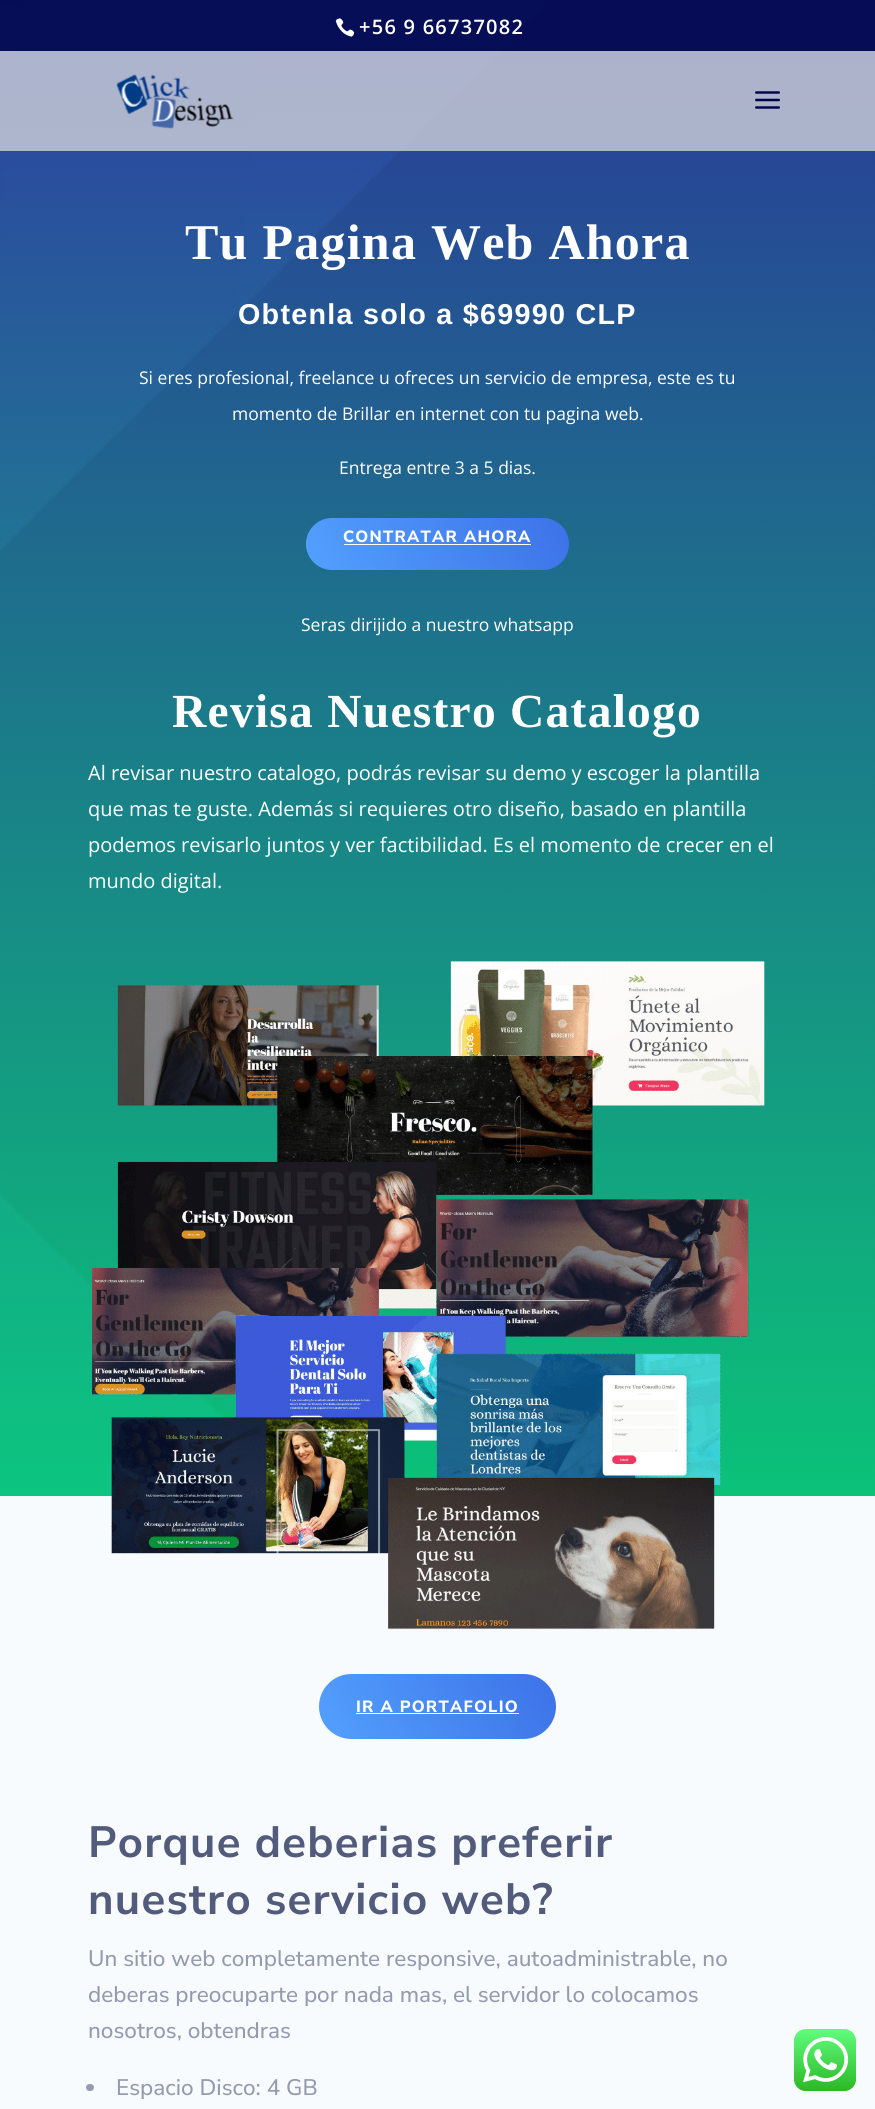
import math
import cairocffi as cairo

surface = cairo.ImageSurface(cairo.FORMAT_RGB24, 875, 2109)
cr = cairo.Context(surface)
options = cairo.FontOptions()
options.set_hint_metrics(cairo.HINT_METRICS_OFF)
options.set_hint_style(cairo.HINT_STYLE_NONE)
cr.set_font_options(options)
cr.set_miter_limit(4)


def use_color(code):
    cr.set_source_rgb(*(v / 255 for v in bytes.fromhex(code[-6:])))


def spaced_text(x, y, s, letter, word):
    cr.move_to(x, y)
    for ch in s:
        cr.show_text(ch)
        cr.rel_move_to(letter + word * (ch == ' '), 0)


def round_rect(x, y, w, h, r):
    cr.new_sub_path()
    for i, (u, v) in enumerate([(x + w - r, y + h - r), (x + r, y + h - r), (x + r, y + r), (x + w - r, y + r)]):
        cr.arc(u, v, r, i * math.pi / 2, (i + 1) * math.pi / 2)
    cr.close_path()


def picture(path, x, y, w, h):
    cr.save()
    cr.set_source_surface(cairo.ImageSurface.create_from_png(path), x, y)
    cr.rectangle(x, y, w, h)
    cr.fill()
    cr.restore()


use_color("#ffffff")
cr.paint()
picture("img4.png", 0, 0, 875, 1496)
cr.set_source_rgba(0, 0.024, 0.298, 0.86)
cr.rectangle(0, 0, 875, 51)
cr.fill()
picture("img1.png", 335, 18, 20, 19)
cr.select_font_face("Open Sans SemiBold")
cr.set_font_size(20)
use_color("#ffffff")
spaced_text(359, 34, "+56 9 66737082", 1.25, 0)
cr.set_source_rgba(0.878, 0.878, 0.878, 0.72)
cr.rectangle(0, 51, 875, 100)
cr.fill()
picture("img2.png", 116, 74, 118, 55)
picture("img3.png", 755, 91, 25, 18)
use_color("#f8fbfe")
cr.set_fill_rule(cairo.FILL_RULE_EVEN_ODD)
cr.new_path()
cr.move_to(-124, -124)
cr.line_to(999, -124)
cr.line_to(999, 1862)
cr.line_to(-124, 1862)
cr.close_path()
cr.move_to(0, -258)
cr.line_to(875, -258)
cr.curve_to(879, -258, 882, -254, 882, -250)
cr.line_to(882, 1489)
cr.curve_to(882, 1493, 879, 1496, 875, 1496)
cr.line_to(0, 1496)
cr.curve_to(-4, 1496, -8, 1493, -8, 1489)
cr.line_to(-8, -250)
cr.curve_to(-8, -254, -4, -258, 0, -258)
cr.close_path()
cr.fill()
cr.select_font_face("Liberation Serif", cairo.FONT_SLANT_NORMAL, cairo.FONT_WEIGHT_BOLD)
cr.set_font_size(50)
use_color("#ffffff")
spaced_text(185, 259, "Tu Pagina Web Ahora", 1.25, 0)
cr.select_font_face("Liberation Sans", cairo.FONT_SLANT_NORMAL, cairo.FONT_WEIGHT_BOLD)
cr.set_font_size(28.75)
spaced_text(238, 324, "Obtenla solo a $69990 CLP", 1.25, 0)
cr.select_font_face("Open Sans")
cr.set_font_size(17.5)
cr.move_to(139, 384)
cr.show_text("Si eres profesional, freelance u ofreces un servicio de empresa, este es tu")
cr.move_to(232, 420)
cr.show_text("momento de Brillar en internet con tu pagina web.")
cr.move_to(339, 474)
cr.show_text("Entrega entre 3 a 5 dias.")
gradient = cairo.LinearGradient(552, 485, 323, 602)
gradient.add_color_stop_rgba(0, 0.239, 0.447, 0.906, 1)
gradient.add_color_stop_rgba(1, 0.325, 0.627, 0.996, 1)
cr.set_source(gradient)
round_rect(306, 518, 263, 52, 26)
cr.fill()
cr.select_font_face("Nunito Sans ExtraBold")
cr.set_font_size(16.25)
use_color("#ffffff")
spaced_text(343, 542, "CONTRATAR AHORA", 1.25, 0)
cr.rectangle(344, 544, 187, 1)
cr.fill()
cr.select_font_face("Open Sans")
cr.set_font_size(17.5)
cr.move_to(301, 631)
cr.show_text("Seras dirijido a nuestro whatsapp")
cr.select_font_face("Liberation Serif", cairo.FONT_SLANT_NORMAL, cairo.FONT_WEIGHT_BOLD)
cr.set_font_size(47.5)
spaced_text(172, 727, "Revisa Nuestro Catalogo", 1.25, 0)
cr.select_font_face("Open Sans")
cr.set_font_size(20)
cr.move_to(88, 780)
cr.show_text("Al revisar nuestro catalogo, podrás revisar su demo y escoger la plantilla")
cr.move_to(88, 816)
cr.show_text("que mas te guste. Además si requieres otro diseño, basado en plantilla")
cr.move_to(88, 852)
cr.show_text("podemos revisarlo juntos y ver factibilidad. Es el momento de crecer en el")
cr.move_to(88, 888)
cr.show_text("mundo digital.")
picture("img5.png", 92, 961, 673, 669)
gradient = cairo.LinearGradient(545, 1652, 330, 1761)
gradient.add_color_stop_rgba(0, 0.239, 0.447, 0.906, 1)
gradient.add_color_stop_rgba(1, 0.325, 0.627, 0.996, 1)
cr.set_source(gradient)
round_rect(319, 1674, 237, 65, 32.5)
cr.fill()
cr.select_font_face("Nunito Sans ExtraBold")
cr.set_font_size(16.25)
use_color("#ffffff")
spaced_text(356, 1712, "IR A PORTAFOLIO", 1.25, 0)
cr.rectangle(356, 1713, 163, 1)
cr.fill()
use_color("#f8fbfe")
cr.rectangle(0, 1862, 875, 247)
cr.fill()
cr.select_font_face("Nunito Sans", cairo.FONT_SLANT_NORMAL, cairo.FONT_WEIGHT_BOLD)
cr.set_font_size(43.75)
use_color("#535b7c")
spaced_text(88, 1857, "Porque deberias preferir", 1.25, 0)
spaced_text(88, 1914, "nuestro servicio web?", 1.25, 0)
cr.select_font_face("Nunito Sans Medium")
cr.set_font_size(22.5)
use_color("#959baf")
cr.move_to(88, 1966)
cr.show_text("Un sitio web completamente responsive, autoadministrable, no")
cr.move_to(88, 2002)
cr.show_text("deberas preocuparte por nada mas, el servidor lo colocamos")
cr.move_to(88, 2038)
cr.show_text("nosotros, obtendras")
round_rect(86, 2084, 8, 7, 3.5)
cr.fill()
cr.move_to(116, 2095)
cr.show_text("Espacio Disco: 4 GB")
picture("img6.png", 794, 2029, 62, 62)
surface.write_to_png("result.png")
